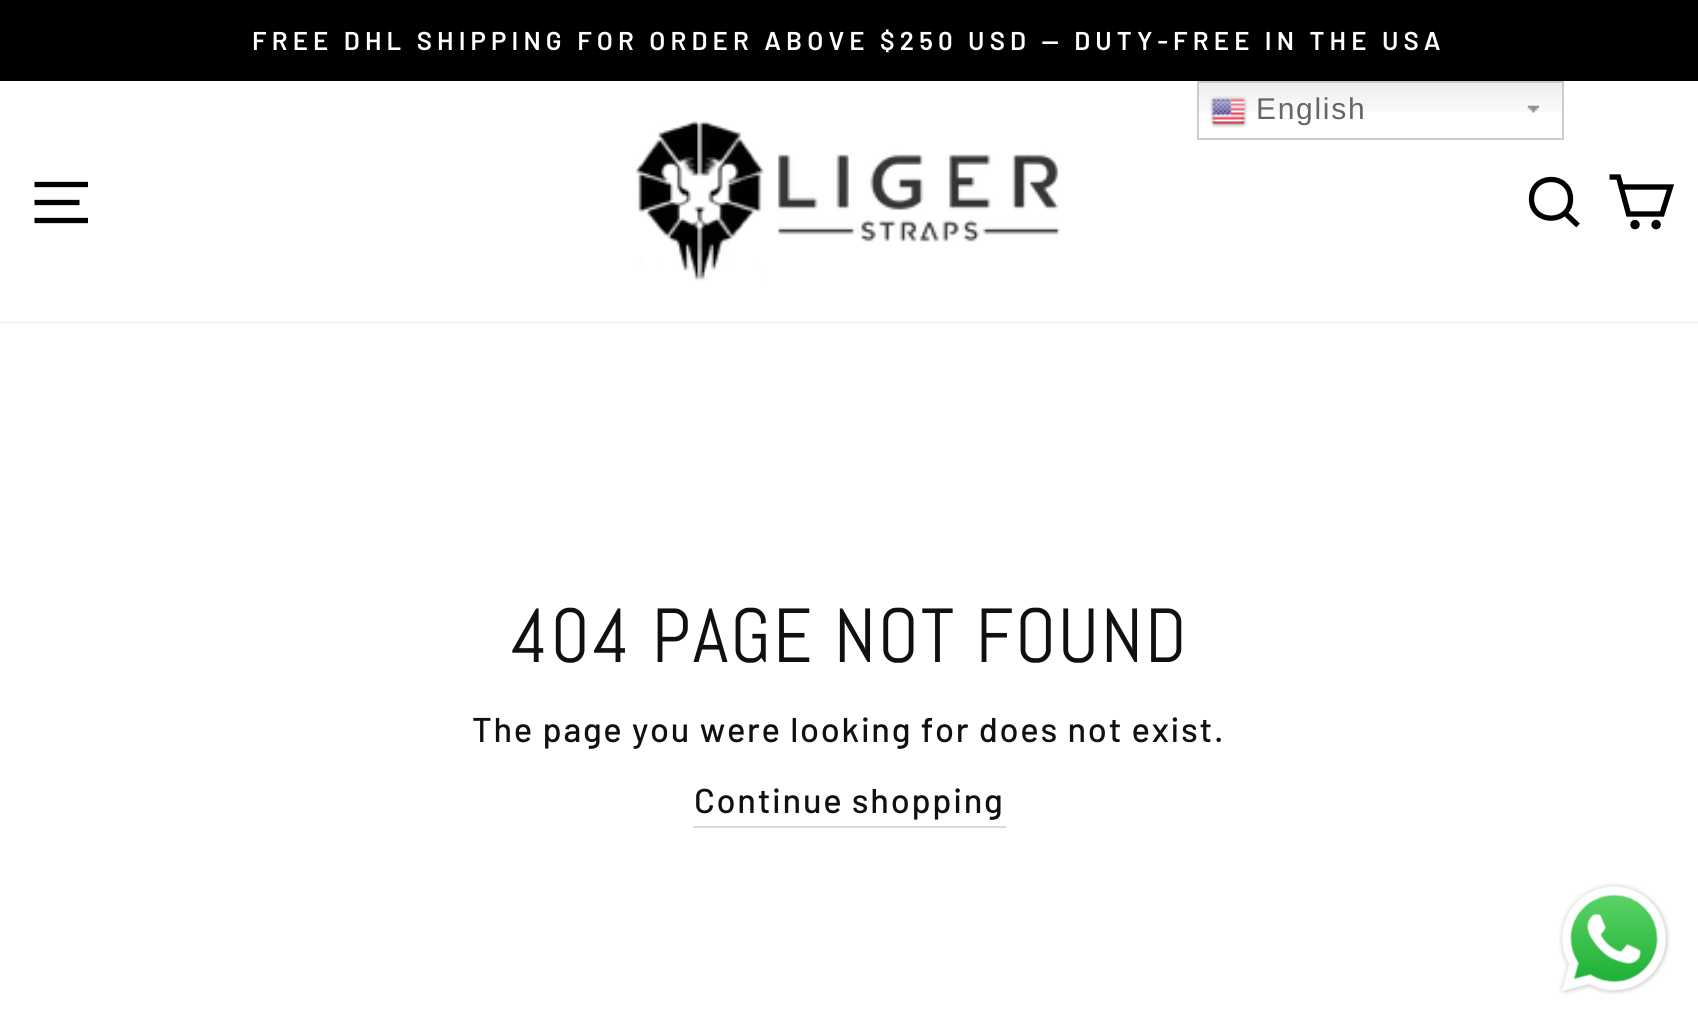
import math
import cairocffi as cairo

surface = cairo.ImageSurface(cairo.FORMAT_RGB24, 1698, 1022)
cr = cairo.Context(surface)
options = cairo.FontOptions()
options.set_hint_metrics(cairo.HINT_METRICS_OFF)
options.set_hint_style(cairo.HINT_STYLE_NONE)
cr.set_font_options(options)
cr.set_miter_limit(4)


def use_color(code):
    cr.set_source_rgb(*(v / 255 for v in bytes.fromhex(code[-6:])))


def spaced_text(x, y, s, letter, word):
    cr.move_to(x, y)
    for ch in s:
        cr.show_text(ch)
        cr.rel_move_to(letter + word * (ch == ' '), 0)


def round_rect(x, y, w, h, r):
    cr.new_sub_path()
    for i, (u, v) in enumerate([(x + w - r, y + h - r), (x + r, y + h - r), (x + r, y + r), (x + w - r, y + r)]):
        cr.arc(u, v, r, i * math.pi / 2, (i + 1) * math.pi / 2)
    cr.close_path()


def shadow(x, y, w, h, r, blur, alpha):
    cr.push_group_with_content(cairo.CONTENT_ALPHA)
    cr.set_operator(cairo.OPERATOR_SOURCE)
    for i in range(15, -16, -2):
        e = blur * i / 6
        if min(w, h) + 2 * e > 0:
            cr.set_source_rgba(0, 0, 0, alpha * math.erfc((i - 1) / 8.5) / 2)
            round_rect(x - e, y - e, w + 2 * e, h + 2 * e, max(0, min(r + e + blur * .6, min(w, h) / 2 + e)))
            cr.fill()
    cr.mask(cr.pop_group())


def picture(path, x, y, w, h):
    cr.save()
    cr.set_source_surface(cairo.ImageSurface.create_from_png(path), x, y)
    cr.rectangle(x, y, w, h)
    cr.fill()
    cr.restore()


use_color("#ffffff")
cr.paint()
use_color("#000000")
cr.rectangle(0, 0, 1698, 81)
cr.fill()
cr.select_font_face("Barlow SemiBold")
cr.set_font_size(25.8)
use_color("#ffffff")
spaced_text(252, 50, "FREE DHL SHIPPING FOR ORDER ABOVE $250 USD — DUTY-FREE IN THE USA", 5.15, 0)
use_color("#000000")
shadow(0, 81, 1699, 241, 0, 1, 0.2)
use_color("#ffffff")
cr.rectangle(0, 81, 1698, 241)
cr.fill()
picture("img1.png", 1199, 83, 363, 29)
picture("img2.png", 1527, 105, 12, 8)
cr.rectangle(1198, 82, 365, 57)
use_color("#cccccc")
cr.stroke()
picture("img3.png", 1210, 96, 37, 32)
cr.select_font_face("Liberation Sans")
cr.set_font_size(30)
use_color("#666666")
spaced_text(1256, 119, "English", 1.7, 0)
cr.new_path()
cr.move_to(34.5, 184.5)
cr.line_to(88, 184.5)
cr.move_to(34.5, 202.5)
cr.line_to(79.5, 202.5)
cr.move_to(34.5, 220.5)
cr.line_to(88, 220.5)
use_color("#000000")
cr.set_line_width(5.3)
cr.stroke()
picture("img4.png", 635, 121, 426, 160)
cr.new_path()
cr.move_to(1570.5, 199)
cr.curve_to(1570.5, 224.5, 1531.5, 224.5, 1531.5, 199)
cr.curve_to(1531.5, 173, 1570.5, 173, 1570.5, 199)
cr.close_path()
cr.move_to(1578, 225.5)
cr.line_to(1565, 213)
cr.stroke()
cr.new_path()
cr.move_to(1621.5, 187)
cr.line_to(1670.5, 187)
cr.line_to(1662, 214)
cr.line_to(1628.5, 214)
cr.line_to(1618.5, 177)
cr.line_to(1609.5, 177)
cr.stroke()
cr.arc(1635, 224.6, 2.1, 0, 2 * math.pi)
cr.fill_preserve()
cr.stroke()
cr.arc(1656.1, 224.6, 2.1, 0, 2 * math.pi)
cr.fill_preserve()
cr.stroke()
cr.select_font_face("Abel")
cr.set_font_size(76.5)
use_color("#110f0f")
spaced_text(510, 662, "404 PAGE NOT FOUND", 1.9, 0)
cr.select_font_face("Barlow Medium")
cr.set_font_size(34.4)
spaced_text(472, 742, "The page you were looking for does not exist.", 1.7, 0)
use_color("#dbdbdb")
cr.rectangle(693, 826, 313, 2)
cr.fill()
use_color("#110f0f")
spaced_text(694, 813, "Continue shopping", 1.7, 0)
picture("img5.png", 1558, 883, 113, 112)
surface.write_to_png("result.png")
